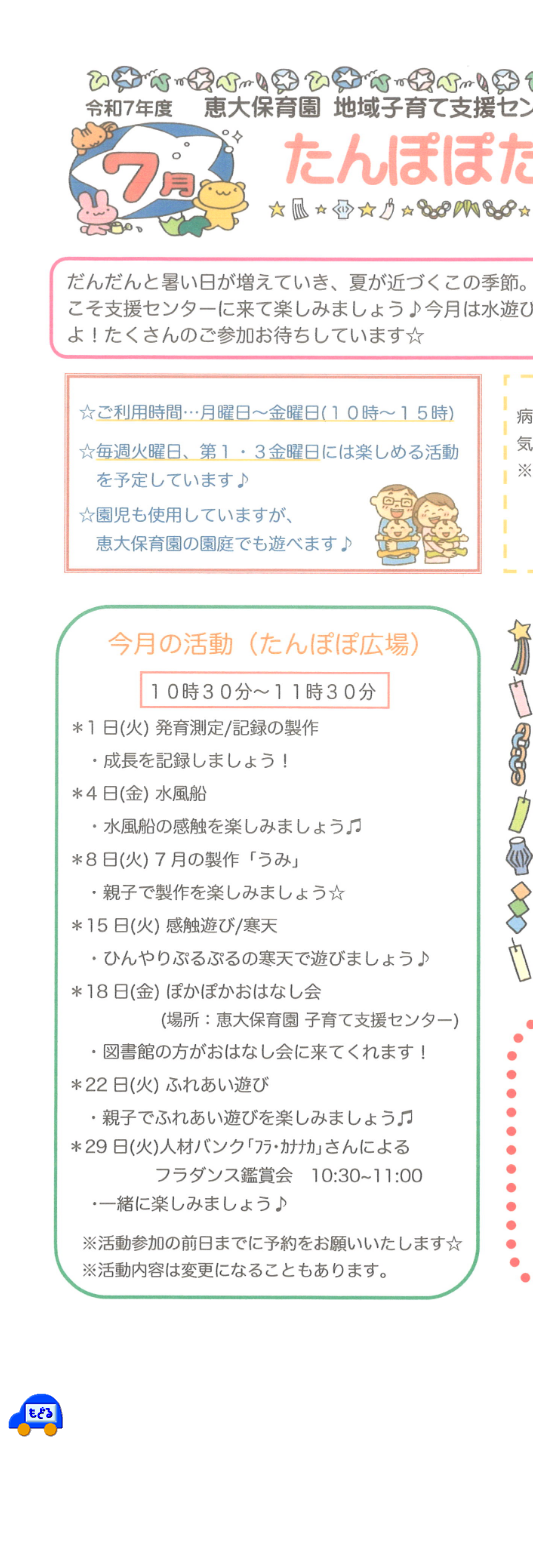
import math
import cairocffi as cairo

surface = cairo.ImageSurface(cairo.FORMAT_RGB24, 533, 1550)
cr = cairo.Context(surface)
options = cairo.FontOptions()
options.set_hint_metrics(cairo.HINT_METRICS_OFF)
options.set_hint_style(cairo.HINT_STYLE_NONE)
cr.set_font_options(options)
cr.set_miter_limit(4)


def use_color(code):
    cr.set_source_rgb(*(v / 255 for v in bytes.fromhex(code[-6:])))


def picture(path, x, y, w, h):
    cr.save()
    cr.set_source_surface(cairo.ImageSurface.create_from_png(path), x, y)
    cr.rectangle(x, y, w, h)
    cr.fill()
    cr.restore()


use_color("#ffffff")
cr.paint()
picture("img1.png", 45, 65, 488, 1236)
picture("img2.png", 8, 1393, 55, 44)
surface.write_to_png("result.png")
